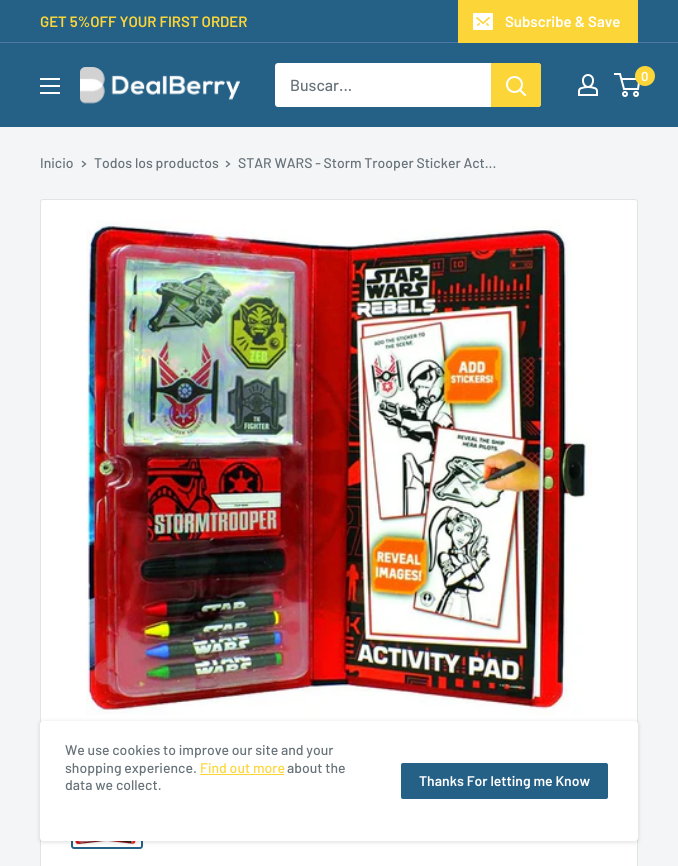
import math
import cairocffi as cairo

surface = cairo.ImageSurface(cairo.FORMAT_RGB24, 678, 866)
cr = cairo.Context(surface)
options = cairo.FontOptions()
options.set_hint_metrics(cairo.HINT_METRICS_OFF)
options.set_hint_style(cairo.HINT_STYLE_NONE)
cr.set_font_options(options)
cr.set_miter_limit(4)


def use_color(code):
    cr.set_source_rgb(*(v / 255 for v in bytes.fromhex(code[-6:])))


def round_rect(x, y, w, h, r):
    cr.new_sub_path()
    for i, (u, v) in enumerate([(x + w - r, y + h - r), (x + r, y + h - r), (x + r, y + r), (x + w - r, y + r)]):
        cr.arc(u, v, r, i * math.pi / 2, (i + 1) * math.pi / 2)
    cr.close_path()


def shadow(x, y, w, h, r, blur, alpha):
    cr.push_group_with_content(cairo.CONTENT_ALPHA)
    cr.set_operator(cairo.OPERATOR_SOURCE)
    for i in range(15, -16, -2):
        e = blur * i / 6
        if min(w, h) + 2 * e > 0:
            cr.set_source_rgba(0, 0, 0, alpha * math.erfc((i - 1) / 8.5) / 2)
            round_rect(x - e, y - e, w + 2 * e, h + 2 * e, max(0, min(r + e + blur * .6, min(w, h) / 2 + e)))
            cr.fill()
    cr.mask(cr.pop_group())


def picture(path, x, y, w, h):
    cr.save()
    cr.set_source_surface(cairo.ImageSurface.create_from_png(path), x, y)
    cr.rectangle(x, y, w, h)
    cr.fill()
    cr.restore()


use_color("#f3f5f6")
cr.paint()
use_color("#256086")
cr.rectangle(0, 0, 678, 42)
cr.fill()
use_color("#4b78a6")
cr.rectangle(0, 42, 678, 1)
cr.fill()
cr.select_font_face("Barlow SemiBold")
cr.set_font_size(15)
use_color("#fcd639")
cr.move_to(40, 27)
cr.show_text("GET 5%OFF YOUR FIRST ORDER")
cr.rectangle(458, 0, 180, 43)
cr.fill()
picture("img1.png", 473, 13, 20, 17)
use_color("#ffffff")
cr.move_to(505, 27)
cr.show_text("Subscribe & Save")
use_color("#256086")
cr.rectangle(0, 43, 678, 84)
cr.fill()
picture("img2.png", 80, 67, 160, 37)
picture("img3.png", 578, 74, 20, 22)
cr.arc(625, 94, 2, 0, 2 * math.pi)
use_color("#ffffff")
cr.stroke()
cr.arc(636, 94, 2, 0, 2 * math.pi)
cr.stroke()
cr.new_path()
cr.move_to(621.5, 79)
cr.line_to(639.5, 79)
cr.line_to(638, 89)
cr.line_to(624, 89)
cr.line_to(620, 74)
cr.line_to(614, 74)
cr.stroke()
use_color("#fcd639")
cr.arc(645, 76, 10, 0, 2 * math.pi)
cr.fill()
cr.set_font_size(13)
use_color("#ffffff")
cr.move_to(641, 81)
cr.show_text("0")
picture("img4.png", 40, 78, 20, 16)
round_rect(275, 63, 266, 44, 3)
cr.fill()
cr.select_font_face("Barlow Medium")
cr.set_font_size(16)
use_color("#677279")
cr.move_to(290, 91)
cr.show_text("Buscar...")
use_color("#fcd639")
cr.new_path()
cr.move_to(491, 63)
cr.line_to(538, 63)
cr.curve_to(539.5, 63, 541, 64.5, 541, 66)
cr.line_to(541, 104)
cr.curve_to(541, 105.5, 539.5, 107, 538, 107)
cr.line_to(491, 107)
cr.close_path()
cr.fill()
cr.new_path()
cr.move_to(525, 95)
cr.line_to(520, 90)
use_color("#ffffff")
cr.set_line_cap(cairo.LINE_CAP_SQUARE)
cr.stroke()
cr.arc(514.5, 84.5, 7.5, 0, 2 * math.pi)
cr.set_line_cap(cairo.LINE_CAP_BUTT)
cr.stroke()
cr.set_font_size(14)
use_color("#677279")
cr.move_to(40, 168)
cr.show_text("Inicio")
cr.new_path()
cr.move_to(82.5, 161.5)
cr.line_to(85.5, 164)
cr.line_to(82.5, 166.5)
cr.set_line_width(1.3)
cr.set_line_cap(cairo.LINE_CAP_SQUARE)
cr.stroke()
cr.move_to(94, 168)
cr.show_text("Todos los productos")
cr.new_path()
cr.move_to(226.5, 161.5)
cr.line_to(229.5, 164)
cr.line_to(226.5, 166.5)
cr.stroke()
cr.move_to(238, 168)
cr.show_text("STAR WARS - Storm Trooper Sticker Act...")
use_color("#ffffff")
round_rect(40.5, 199.5, 597, 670, 2.5)
cr.fill_preserve()
use_color("#e1e3e4")
cr.set_line_width(1)
cr.set_line_cap(cairo.LINE_CAP_BUTT)
cr.stroke()
picture("img5.png", 86, 220, 506, 496)
round_rect(72, 779, 70, 69, 2)
use_color("#256086")
cr.set_line_width(2)
cr.stroke()
picture("img6.png", 75, 841, 64, 4)
use_color("#000000")
shadow(39, 721, 600, 122, 4, 2, 0.1)
use_color("#ffffff")
round_rect(40, 721, 598, 120, 3)
cr.fill()
use_color("#677279")
cr.move_to(65, 755)
cr.show_text("We use cookies to improve our site and your")
cr.move_to(65, 773)
cr.show_text("shopping experience.")
use_color("#fcd639")
cr.move_to(200, 773)
cr.show_text("Find out more")
cr.rectangle(200, 774, 84, 1)
cr.fill()
use_color("#677279")
cr.move_to(287, 773)
cr.show_text("about the")
cr.move_to(65, 790)
cr.show_text("data we collect.")
use_color("#256086")
round_rect(401, 763, 207, 36, 2)
cr.fill()
cr.select_font_face("Barlow SemiBold")
use_color("#ffffff")
cr.move_to(419, 786)
cr.show_text("Thanks For letting me Know")
surface.write_to_png("result.png")
